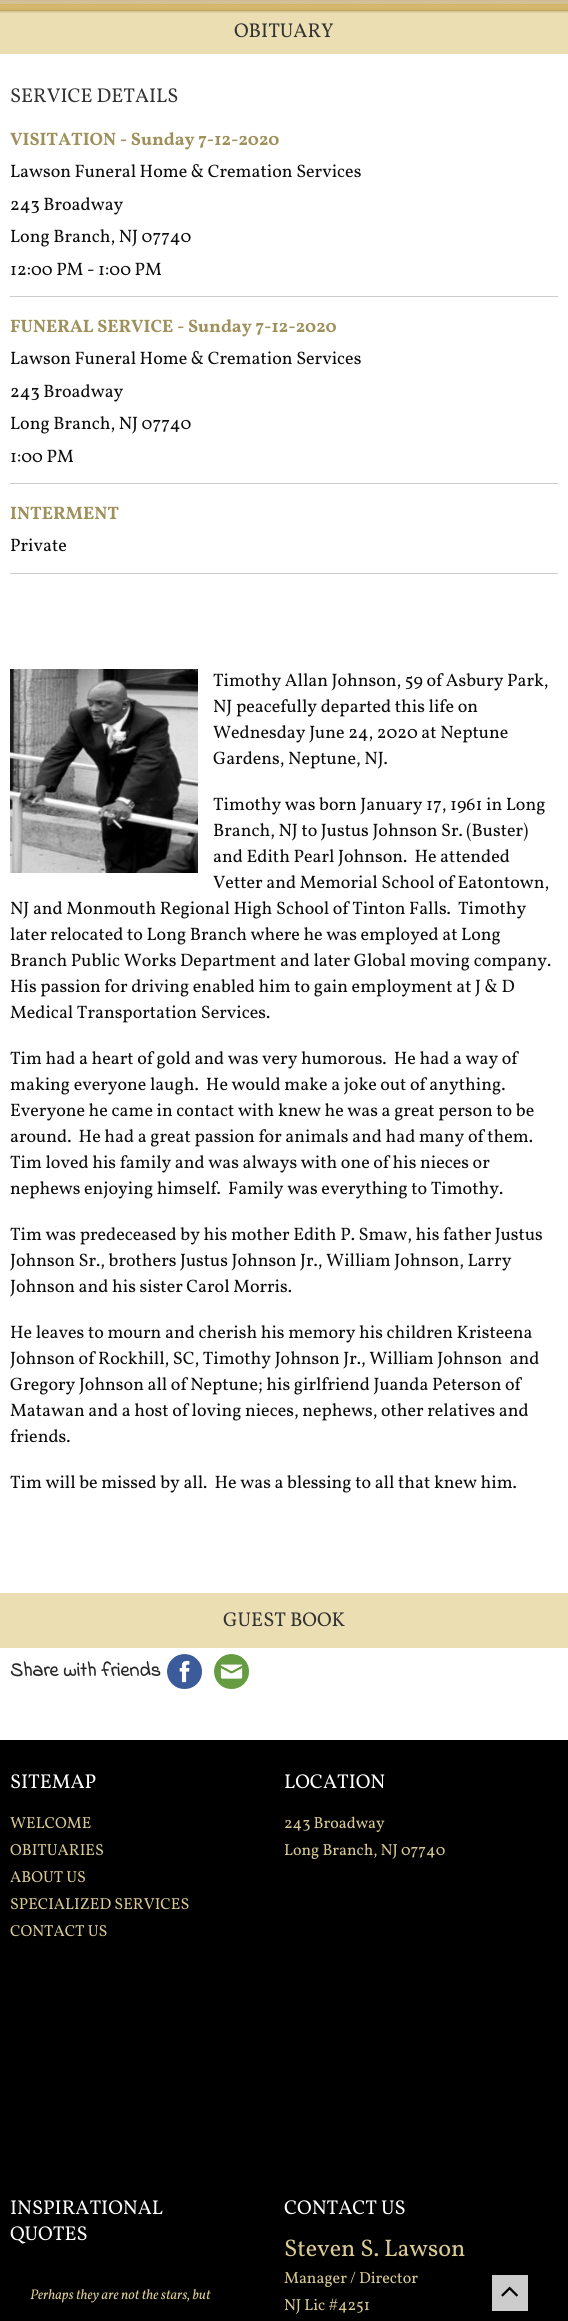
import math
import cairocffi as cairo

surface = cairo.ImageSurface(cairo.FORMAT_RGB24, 568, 2321)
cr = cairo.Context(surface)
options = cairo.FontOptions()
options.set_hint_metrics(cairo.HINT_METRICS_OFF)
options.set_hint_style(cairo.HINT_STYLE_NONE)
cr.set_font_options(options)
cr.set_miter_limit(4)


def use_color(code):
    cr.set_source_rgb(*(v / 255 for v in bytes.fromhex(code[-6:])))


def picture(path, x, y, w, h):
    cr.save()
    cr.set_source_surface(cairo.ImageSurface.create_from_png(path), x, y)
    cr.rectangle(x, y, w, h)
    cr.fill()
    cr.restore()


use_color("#ffffff")
cr.paint()
picture("img1.png", 0, 0, 568, 54)
cr.select_font_face("Vollkorn")
cr.set_font_size(20)
use_color("#333333")
cr.move_to(234, 37)
cr.show_text("OBITUARY")
cr.move_to(10, 102)
cr.show_text("SERVICE DETAILS")
cr.select_font_face("Vollkorn", cairo.FONT_SLANT_NORMAL, cairo.FONT_WEIGHT_BOLD)
cr.set_font_size(18)
use_color("#9f915c")
cr.move_to(10, 145)
cr.show_text("VISITATION - Sunday 7-12-2020")
cr.select_font_face("Vollkorn")
use_color("#0c0c0c")
cr.move_to(10, 177)
cr.show_text("Lawson Funeral Home & Cremation Services")
cr.move_to(10, 210)
cr.show_text("243 Broadway")
cr.move_to(10, 242)
cr.show_text("Long Branch, NJ 07740")
cr.move_to(10, 275)
cr.show_text("12:00 PM - 1:00 PM")
use_color("#cccccc")
cr.rectangle(10, 296, 548, 1)
cr.fill()
cr.select_font_face("Vollkorn", cairo.FONT_SLANT_NORMAL, cairo.FONT_WEIGHT_BOLD)
use_color("#9f915c")
cr.move_to(10, 332)
cr.show_text("FUNERAL SERVICE - Sunday 7-12-2020")
cr.select_font_face("Vollkorn")
use_color("#0c0c0c")
cr.move_to(10, 364)
cr.show_text("Lawson Funeral Home & Cremation Services")
cr.move_to(10, 397)
cr.show_text("243 Broadway")
cr.move_to(10, 429)
cr.show_text("Long Branch, NJ 07740")
cr.move_to(10, 462)
cr.show_text("1:00 PM")
use_color("#cccccc")
cr.rectangle(10, 483, 548, 1)
cr.fill()
cr.select_font_face("Vollkorn", cairo.FONT_SLANT_NORMAL, cairo.FONT_WEIGHT_BOLD)
use_color("#9f915c")
cr.move_to(10, 519)
cr.show_text("INTERMENT")
cr.select_font_face("Vollkorn")
use_color("#0c0c0c")
cr.move_to(10, 551)
cr.show_text("Private")
use_color("#cccccc")
cr.rectangle(10, 573, 548, 1)
cr.fill()
picture("img2.png", 10, 669, 188, 204)
use_color("#0c0c0c")
cr.move_to(213, 686)
cr.show_text("Timothy Allan Johnson, 59 of Asbury Park,")
cr.move_to(213, 712)
cr.show_text("NJ peacefully departed this life on")
cr.move_to(213, 738)
cr.show_text("Wednesday June 24, 2020 at Neptune")
cr.move_to(213, 764)
cr.show_text("Gardens, Neptune, NJ.")
cr.move_to(213, 810)
cr.show_text("Timothy was born January 17, 1961 in Long")
cr.move_to(213, 836)
cr.show_text("Branch, NJ to Justus Johnson Sr. (Buster)")
cr.move_to(213, 862)
cr.show_text("and Edith Pearl Johnson.  He attended")
cr.move_to(213, 888)
cr.show_text("Vetter and Memorial School of Eatontown,")
cr.move_to(10, 914)
cr.show_text("NJ and Monmouth Regional High School of Tinton Falls.  Timothy")
cr.move_to(10, 940)
cr.show_text("later relocated to Long Branch where he was employed at Long")
cr.move_to(10, 966)
cr.show_text("Branch Public Works Department and later Global moving company.")
cr.move_to(10, 992)
cr.show_text("His passion for driving enabled him to gain employment at J & D")
cr.move_to(10, 1018)
cr.show_text("Medical Transportation Services.")
cr.move_to(10, 1064)
cr.show_text("Tim had a heart of gold and was very humorous.  He had a way of")
cr.move_to(10, 1090)
cr.show_text("making everyone laugh.  He would make a joke out of anything.")
cr.move_to(10, 1116)
cr.show_text("Everyone he came in contact with knew he was a great person to be")
cr.move_to(10, 1142)
cr.show_text("around.  He had a great passion for animals and had many of them.")
cr.move_to(10, 1168)
cr.show_text("Tim loved his family and was always with one of his nieces or")
cr.move_to(10, 1194)
cr.show_text("nephews enjoying himself.  Family was everything to Timothy.")
cr.move_to(10, 1240)
cr.show_text("Tim was predeceased by his mother Edith P. Smaw, his father Justus")
cr.move_to(10, 1266)
cr.show_text("Johnson Sr., brothers Justus Johnson Jr., William Johnson, Larry")
cr.move_to(10, 1292)
cr.show_text("Johnson and his sister Carol Morris.")
cr.move_to(10, 1338)
cr.show_text("He leaves to mourn and cherish his memory his children Kristeena")
cr.move_to(10, 1364)
cr.show_text("Johnson of Rockhill, SC, Timothy Johnson Jr., William Johnson  and")
cr.move_to(10, 1390)
cr.show_text("Gregory Johnson all of Neptune; his girlfriend Juanda Peterson of")
cr.move_to(10, 1416)
cr.show_text("Matawan and a host of loving nieces, nephews, other relatives and")
cr.move_to(10, 1442)
cr.show_text("friends.")
cr.move_to(10, 1488)
cr.show_text("Tim will be missed by all.  He was a blessing to all that knew him.")
use_color("#ebdeb3")
cr.rectangle(0, 1593, 568, 55)
cr.fill()
cr.set_font_size(20)
use_color("#333333")
cr.move_to(223, 1626)
cr.show_text("GUEST BOOK")
cr.select_font_face("Indie Flower", cairo.FONT_SLANT_NORMAL, cairo.FONT_WEIGHT_BOLD)
use_color("#272727")
cr.move_to(10, 1676)
cr.show_text("Share with friends")
picture("img3.png", 167, 1654, 35, 35)
picture("img4.png", 214, 1654, 35, 35)
use_color("#000000")
cr.rectangle(0, 1740, 568, 581)
cr.fill()
cr.select_font_face("Vollkorn")
use_color("#ffffff")
cr.move_to(10, 1788)
cr.show_text("SITEMAP")
cr.set_font_size(16)
use_color("#d9ca92")
cr.move_to(10, 1828)
cr.show_text("WELCOME")
cr.move_to(10, 1855)
cr.show_text("OBITUARIES")
cr.move_to(10, 1882)
cr.show_text("ABOUT US")
cr.move_to(10, 1909)
cr.show_text("SPECIALIZED SERVICES")
cr.move_to(10, 1936)
cr.show_text("CONTACT US")
cr.set_font_size(20)
use_color("#ffffff")
cr.move_to(284, 1788)
cr.show_text("LOCATION")
cr.set_font_size(16)
use_color("#d9ca92")
cr.move_to(284, 1828)
cr.show_text("243 Broadway")
cr.move_to(284, 1855)
cr.show_text("Long Branch, NJ 07740")
cr.set_font_size(20)
use_color("#ffffff")
cr.move_to(10, 2214)
cr.show_text("INSPIRATIONAL")
cr.move_to(10, 2240)
cr.show_text("QUOTES")
cr.select_font_face("Vollkorn", cairo.FONT_SLANT_ITALIC)
cr.set_font_size(14)
use_color("#d9ca92")
cr.move_to(30, 2299)
cr.show_text("Perhaps they are not the stars, but")
cr.select_font_face("Vollkorn")
cr.set_font_size(20)
use_color("#ffffff")
cr.move_to(284, 2214)
cr.show_text("CONTACT US")
cr.set_font_size(24)
use_color("#d9ca92")
cr.move_to(284, 2256)
cr.show_text("Steven S. Lawson")
cr.set_font_size(16)
cr.move_to(284, 2283)
cr.show_text("Manager / Director")
cr.move_to(284, 2310)
cr.show_text("NJ Lic #4251")
use_color("#cccccc")
cr.rectangle(492, 2275, 36, 36)
cr.fill()
picture("img5.png", 501, 2286, 17, 11)
surface.write_to_png("result.png")
